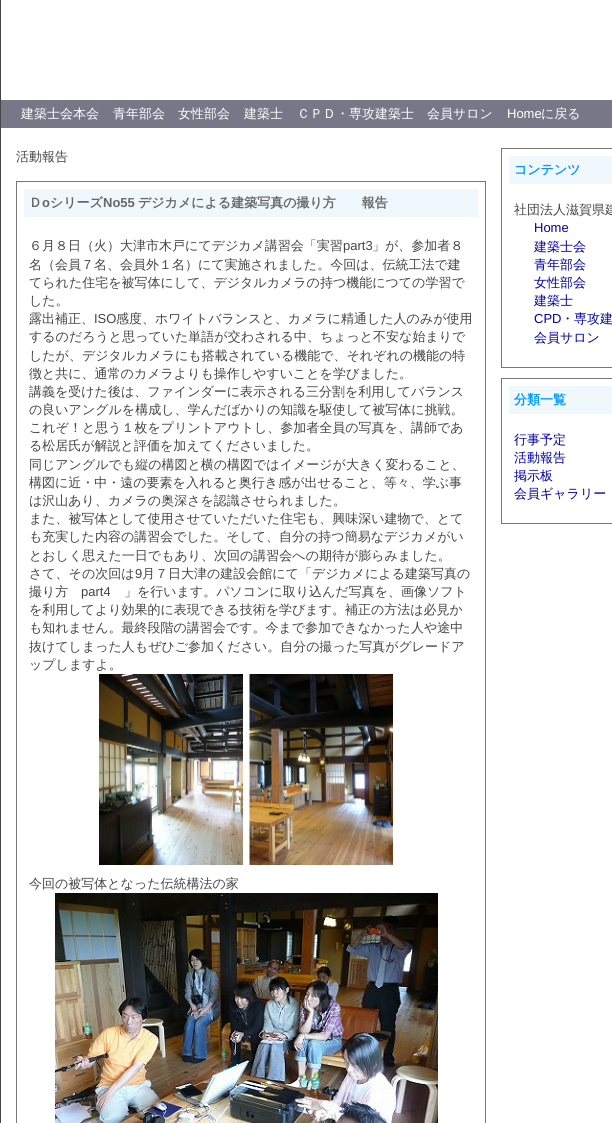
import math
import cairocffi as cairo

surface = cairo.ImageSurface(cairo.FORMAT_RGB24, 612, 1123)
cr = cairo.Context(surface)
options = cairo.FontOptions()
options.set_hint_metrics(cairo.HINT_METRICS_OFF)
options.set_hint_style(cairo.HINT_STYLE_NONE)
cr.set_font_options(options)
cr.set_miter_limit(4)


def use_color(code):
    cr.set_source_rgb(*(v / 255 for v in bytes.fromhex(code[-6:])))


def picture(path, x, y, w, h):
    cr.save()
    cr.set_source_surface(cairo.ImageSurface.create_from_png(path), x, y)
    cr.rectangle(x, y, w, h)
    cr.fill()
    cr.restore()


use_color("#ffffff")
cr.paint()
use_color("#444444")
cr.rectangle(0, 0, 1, 1123)
cr.fill()
use_color("#777788")
cr.rectangle(1, 100, 611, 28)
cr.fill()
cr.select_font_face("WenQuanYi Zen Hei Medium")
cr.set_font_size(13)
use_color("#ffffff")
cr.move_to(21, 118)
cr.show_text("建築士会本会")
cr.move_to(113, 118)
cr.show_text("青年部会")
cr.move_to(178, 118)
cr.show_text("女性部会")
cr.move_to(244, 118)
cr.show_text("建築士")
cr.move_to(297, 118)
cr.show_text("ＣＰＤ・専攻建築士")
cr.move_to(427, 118)
cr.show_text("会員サロン")
cr.select_font_face("Liberation Sans")
cr.move_to(507, 118)
cr.show_text("Home")
cr.select_font_face("WenQuanYi Zen Hei Medium")
cr.move_to(541, 118)
cr.show_text("に戻る")
use_color("#444444")
cr.move_to(16, 161)
cr.show_text("活動報告")
cr.rectangle(16.5, 181.5, 469, 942)
use_color("#777777")
cr.set_line_width(1)
cr.stroke()
use_color("#f0f7fd")
cr.rectangle(24, 189, 454, 28)
cr.fill()
cr.select_font_face("WenQuanYi Zen Hei", cairo.FONT_SLANT_NORMAL, cairo.FONT_WEIGHT_BOLD)
use_color("#666666")
cr.move_to(29, 207)
cr.show_text("Ｄ")
cr.select_font_face("Liberation Sans", cairo.FONT_SLANT_NORMAL, cairo.FONT_WEIGHT_BOLD)
cr.move_to(42, 207)
cr.show_text("o")
cr.select_font_face("WenQuanYi Zen Hei", cairo.FONT_SLANT_NORMAL, cairo.FONT_WEIGHT_BOLD)
cr.move_to(50, 207)
cr.show_text("シリーズ")
cr.select_font_face("Liberation Sans", cairo.FONT_SLANT_NORMAL, cairo.FONT_WEIGHT_BOLD)
cr.move_to(103, 207)
cr.show_text("No55")
cr.select_font_face("WenQuanYi Zen Hei", cairo.FONT_SLANT_NORMAL, cairo.FONT_WEIGHT_BOLD)
cr.move_to(138, 207)
cr.show_text("デジカメによる建築写真の撮り方　　報告")
cr.select_font_face("WenQuanYi Zen Hei Medium")
use_color("#444444")
cr.move_to(29, 250)
cr.show_text("６月８日（火）大津市木戸にてデジカメ講習会「実習")
cr.select_font_face("Liberation Sans")
cr.move_to(343, 250)
cr.show_text("part3")
cr.select_font_face("WenQuanYi Zen Hei Medium")
cr.move_to(372, 250)
cr.show_text("」が、参加者８")
cr.move_to(29, 269)
cr.show_text("名（会員７名、会員外１名）にて実施されました。今回は、伝統工法で建")
cr.move_to(29, 287)
cr.show_text("てられた住宅を被写体にして、デジタルカメラの持つ機能につての学習で")
cr.move_to(29, 305)
cr.show_text("した。")
cr.move_to(29, 323)
cr.show_text("露出補正、")
cr.select_font_face("Liberation Sans")
cr.move_to(94, 323)
cr.show_text("ISO")
cr.select_font_face("WenQuanYi Zen Hei Medium")
cr.move_to(116, 323)
cr.show_text("感度、ホワイトバランスと、カメラに精通した人のみが使用")
cr.move_to(29, 341)
cr.show_text("するのだろうと思っていた単語が交わされる中、ちょっと不安な始まりで")
cr.move_to(29, 360)
cr.show_text("したが、デジタルカメラにも搭載されている機能で、それぞれの機能の特")
cr.move_to(29, 378)
cr.show_text("徴と共に、通常のカメラよりも操作しやすいことを学びました。")
cr.move_to(29, 396)
cr.show_text("講義を受けた後は、ファインダーに表示される三分割を利用してバランス")
cr.move_to(29, 414)
cr.show_text("の良いアングルを構成し、学んだばかりの知識を駆使して被写体に挑戦。")
cr.move_to(29, 432)
cr.show_text("これぞ！と思う１枚をプリントアウトし、参加者全員の写真を、講師であ")
cr.move_to(29, 450)
cr.show_text("る松居氏が解説と評価を加えてくださいました。")
cr.move_to(29, 469)
cr.show_text("同じアングルでも縦の構図と横の構図ではイメージが大きく変わること、")
cr.move_to(29, 487)
cr.show_text("構図に近・中・遠の要素を入れると奥行き感が出せること、等々、学ぶ事")
cr.move_to(29, 505)
cr.show_text("は沢山あり、カメラの奥深さを認識させられました。")
cr.move_to(29, 523)
cr.show_text("また、被写体として使用させていただいた住宅も、興味深い建物で、とて")
cr.move_to(29, 541)
cr.show_text("も充実した内容の講習会でした。そして、自分の持つ簡易なデジカメがい")
cr.move_to(29, 560)
cr.show_text("とおしく思えた一日でもあり、次回の講習会への期待が膨らみました。")
cr.move_to(29, 578)
cr.show_text("さて、その次回は")
cr.select_font_face("Liberation Sans")
cr.move_to(135, 578)
cr.show_text("9")
cr.select_font_face("WenQuanYi Zen Hei Medium")
cr.move_to(142, 578)
cr.show_text("月７日大津の建設会館にて「デジカメによる建築写真の")
cr.move_to(29, 596)
cr.show_text("撮り方")
cr.select_font_face("Liberation Sans")
cr.move_to(81, 596)
cr.show_text("part4")
cr.select_font_face("WenQuanYi Zen Hei Medium")
cr.move_to(124, 596)
cr.show_text("」を行います。パソコンに取り込んだ写真を、画像ソフト")
cr.move_to(29, 614)
cr.show_text("を利用してより効果的に表現できる技術を学びます。補正の方法は必見か")
cr.move_to(29, 632)
cr.show_text("も知れません。最終段階の講習会です。今まで参加できなかった人や途中")
cr.move_to(29, 651)
cr.show_text("抜けてしまった人もぜひご参加ください。自分の撮った写真がグレードア")
cr.move_to(29, 669)
cr.show_text("ップしますよ。")
picture("img1.png", 99, 674, 294, 191)
cr.move_to(29, 888)
cr.show_text("今回の被写体となった伝統構法の家")
picture("img2.png", 55, 893, 383, 230)
cr.rectangle(501.5, 148.5, 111, 219)
use_color("#777777")
cr.stroke()
use_color("#f0f7fd")
cr.rectangle(509, 156, 103, 28)
cr.fill()
cr.select_font_face("WenQuanYi Zen Hei", cairo.FONT_SLANT_NORMAL, cairo.FONT_WEIGHT_BOLD)
use_color("#0099ff")
cr.move_to(514, 174)
cr.show_text("コンテンツ")
cr.select_font_face("WenQuanYi Zen Hei Medium")
use_color("#444444")
cr.move_to(514, 214)
cr.show_text("社団法人滋賀県建")
cr.select_font_face("Liberation Sans")
use_color("#0000aa")
cr.move_to(534, 232)
cr.show_text("Home")
cr.select_font_face("WenQuanYi Zen Hei Medium")
cr.move_to(534, 251)
cr.show_text("建築士会")
cr.move_to(534, 269)
cr.show_text("青年部会")
cr.move_to(534, 287)
cr.show_text("女性部会")
cr.move_to(534, 305)
cr.show_text("建築士")
cr.select_font_face("Liberation Sans")
cr.move_to(534, 323)
cr.show_text("CPD")
cr.select_font_face("WenQuanYi Zen Hei Medium")
cr.move_to(561, 323)
cr.show_text("・専攻建")
cr.move_to(534, 342)
cr.show_text("会員サロン")
cr.rectangle(501.5, 378.5, 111, 145)
use_color("#777777")
cr.stroke()
use_color("#f0f7fd")
cr.rectangle(509, 386, 103, 28)
cr.fill()
cr.select_font_face("WenQuanYi Zen Hei", cairo.FONT_SLANT_NORMAL, cairo.FONT_WEIGHT_BOLD)
use_color("#0099ff")
cr.move_to(514, 404)
cr.show_text("分類一覧")
cr.select_font_face("WenQuanYi Zen Hei Medium")
use_color("#0000aa")
cr.move_to(514, 444)
cr.show_text("行事予定")
cr.move_to(514, 462)
cr.show_text("活動報告")
cr.move_to(514, 480)
cr.show_text("掲示板")
cr.move_to(514, 498)
cr.show_text("会員ギャラリー")
surface.write_to_png("result.png")
